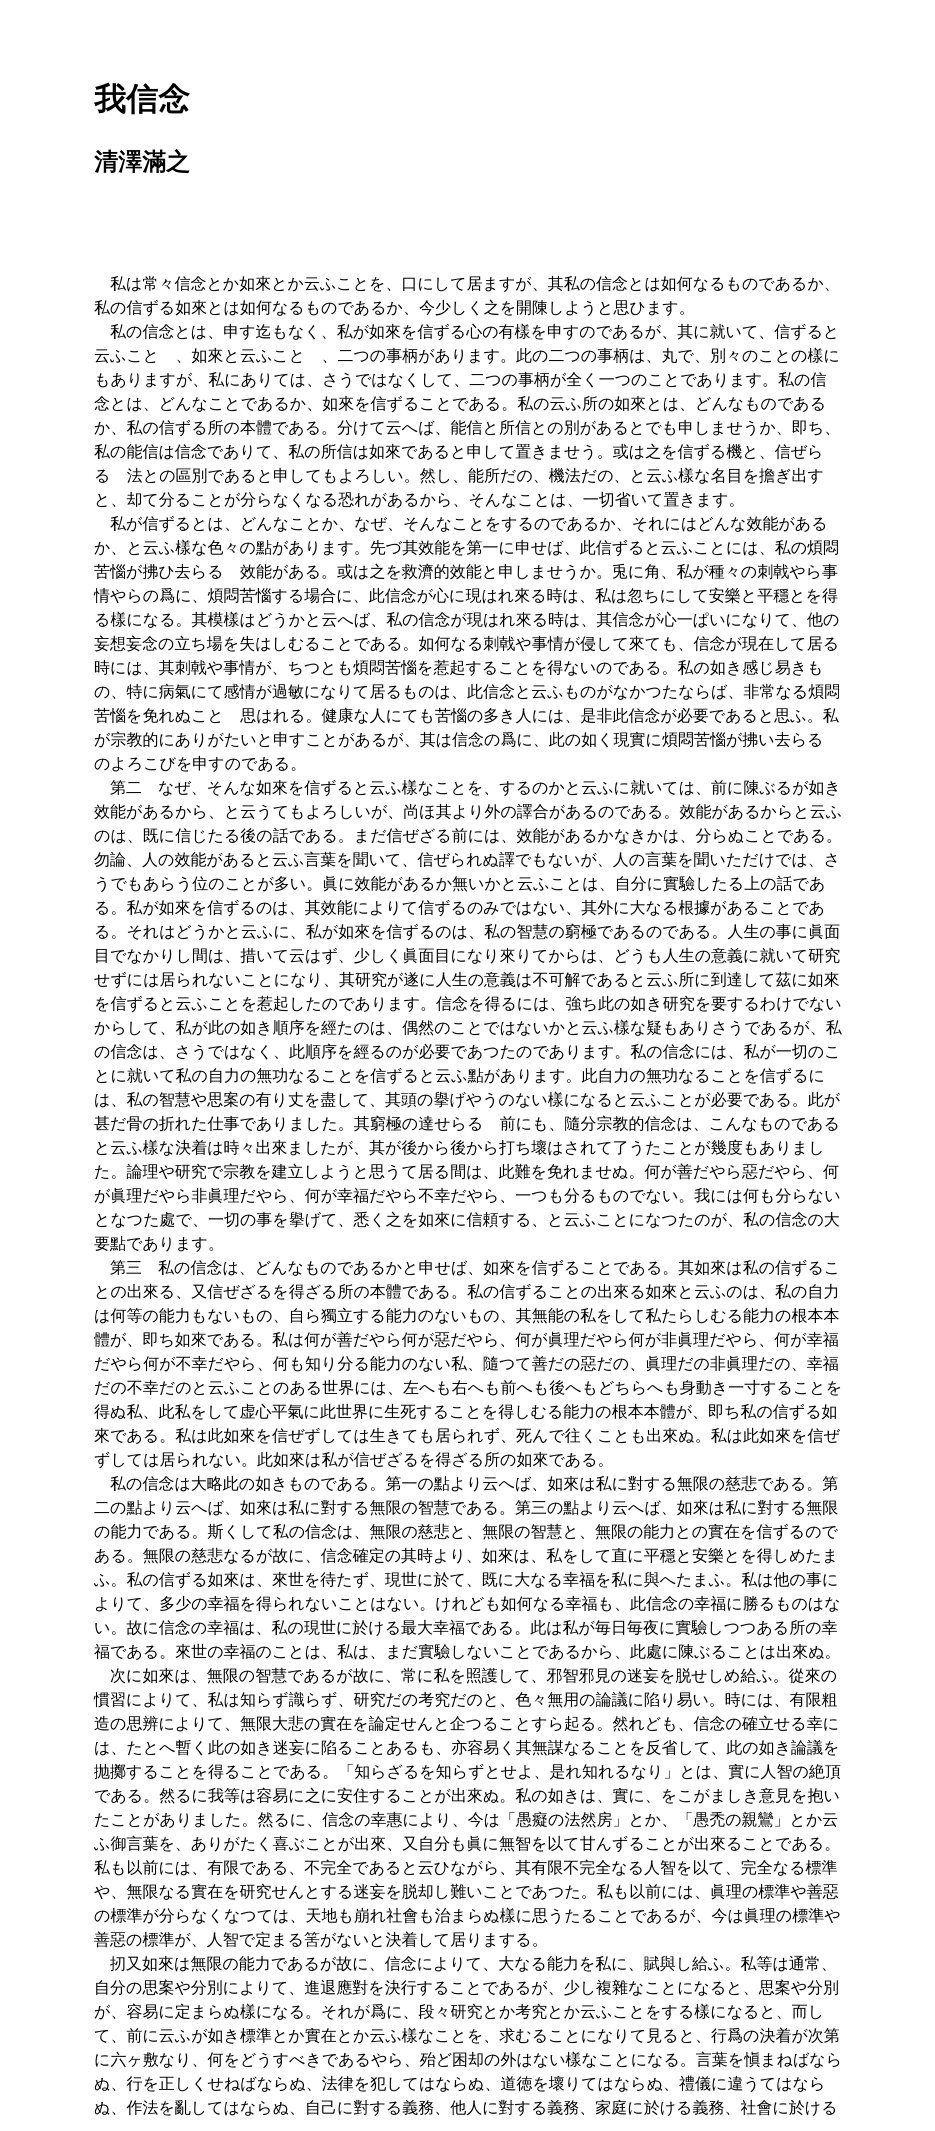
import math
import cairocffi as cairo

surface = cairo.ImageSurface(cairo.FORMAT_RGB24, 935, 2131)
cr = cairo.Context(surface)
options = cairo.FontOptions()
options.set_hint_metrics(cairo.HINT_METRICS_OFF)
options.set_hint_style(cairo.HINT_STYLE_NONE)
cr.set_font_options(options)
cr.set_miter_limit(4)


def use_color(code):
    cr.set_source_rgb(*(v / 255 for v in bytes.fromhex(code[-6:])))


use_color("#ffffff")
cr.paint()
cr.select_font_face("WenQuanYi Zen Hei", cairo.FONT_SLANT_NORMAL, cairo.FONT_WEIGHT_BOLD)
cr.set_font_size(32)
use_color("#000000")
cr.move_to(94, 110)
cr.show_text("我信念")
cr.set_font_size(24)
cr.move_to(94, 170)
cr.show_text("清澤滿之")
cr.select_font_face("WenQuanYi Zen Hei Medium")
cr.set_font_size(16)
cr.move_to(110, 289)
cr.show_text("私は常々信念とか如來とか云ふことを、口にして居ますが、其私の信念とは如何なるものであるか、")
cr.move_to(94, 313)
cr.show_text("私の信ずる如來とは如何なるものであるか、今少しく之を開陳しようと思ひます。")
cr.move_to(110, 337)
cr.show_text("私の信念とは、申す迄もなく、私が如來を信ずる心の有樣を申すのであるが、其に就いて、信ずると")
cr.move_to(94, 361)
cr.show_text("云ふことゝ、如來と云ふことゝ、二つの事柄があります。此の二つの事柄は、丸で、別々のことの樣に")
cr.move_to(94, 385)
cr.show_text("もありますが、私にありては、さうではなくして、二つの事柄が全く一つのことであります。私の信")
cr.move_to(94, 409)
cr.show_text("念とは、どんなことであるか、如來を信ずることである。私の云ふ所の如來とは、どんなものである")
cr.move_to(94, 433)
cr.show_text("か、私の信ずる所の本體である。分けて云へば、能信と所信との別があるとでも申しませうか、即ち、")
cr.move_to(94, 457)
cr.show_text("私の能信は信念でありて、私の所信は如來であると申して置きませう。或は之を信ずる機と、信ぜら")
cr.move_to(94, 481)
cr.show_text("るゝ法との區別であると申してもよろしい。然し、能所だの、機法だの、と云ふ樣な名目を擔ぎ出す")
cr.move_to(94, 505)
cr.show_text("と、却て分ることが分らなくなる恐れがあるから、そんなことは、一切省いて置きます。")
cr.move_to(110, 529)
cr.show_text("私が信ずるとは、どんなことか、なぜ、そんなことをするのであるか、それにはどんな效能がある")
cr.move_to(94, 553)
cr.show_text("か、と云ふ樣な色々の點があります。先づ其效能を第一に申せば、此信ずると云ふことには、私の煩悶")
cr.move_to(94, 577)
cr.show_text("苦惱が拂ひ去らるゝ效能がある。或は之を救濟的效能と申しませうか。兎に角、私が種々の刺戟やら事")
cr.move_to(94, 601)
cr.show_text("情やらの爲に、煩悶苦惱する場合に、此信念が心に現はれ來る時は、私は忽ちにして安樂と平穩とを得")
cr.move_to(94, 625)
cr.show_text("る樣になる。其模樣はどうかと云へば、私の信念が現はれ來る時は、其信念が心一ぱいになりて、他の")
cr.move_to(94, 649)
cr.show_text("妄想妄念の立ち場を失はしむることである。如何なる刺戟や事情が侵して來ても、信念が現在して居る")
cr.move_to(94, 673)
cr.show_text("時には、其刺戟や事情が、ちつとも煩悶苦惱を惹起することを得ないのである。私の如き感じ易きも")
cr.move_to(94, 697)
cr.show_text("の、特に病氣にて感情が過敏になりて居るものは、此信念と云ふものがなかつたならば、非常なる煩悶")
cr.move_to(94, 721)
cr.show_text("苦惱を免れぬことゝ思はれる。健康な人にても苦惱の多き人には、是非此信念が必要であると思ふ。私")
cr.move_to(94, 745)
cr.show_text("が宗教的にありがたいと申すことがあるが、其は信念の爲に、此の如く現實に煩悶苦惱が拂い去らるゝ")
cr.move_to(94, 769)
cr.show_text("のよろこびを申すのである。")
cr.move_to(110, 793)
cr.show_text("第二　なぜ、そんな如來を信ずると云ふ樣なことを、するのかと云ふに就いては、前に陳ぶるが如き")
cr.move_to(94, 817)
cr.show_text("效能があるから、と云うてもよろしいが、尚ほ其より外の譯合があるのである。效能があるからと云ふ")
cr.move_to(94, 841)
cr.show_text("のは、既に信じたる後の話である。まだ信ぜざる前には、效能があるかなきかは、分らぬことである。")
cr.move_to(94, 865)
cr.show_text("勿論、人の效能があると云ふ言葉を聞いて、信ぜられぬ譯でもないが、人の言葉を聞いただけでは、さ")
cr.move_to(94, 889)
cr.show_text("うでもあらう位のことが多い。眞に效能があるか無いかと云ふことは、自分に實驗したる上の話であ")
cr.move_to(94, 913)
cr.show_text("る。私が如來を信ずるのは、其效能によりて信ずるのみではない、其外に大なる根據があることであ")
cr.move_to(94, 937)
cr.show_text("る。それはどうかと云ふに、私が如來を信ずるのは、私の智慧の窮極であるのである。人生の事に眞面")
cr.move_to(94, 961)
cr.show_text("目でなかりし間は、措いて云はず、少しく眞面目になり來りてからは、どうも人生の意義に就いて研究")
cr.move_to(94, 985)
cr.show_text("せずには居られないことになり、其研究が遂に人生の意義は不可解であると云ふ所に到達して茲に如來")
cr.move_to(94, 1009)
cr.show_text("を信ずると云ふことを惹起したのであります。信念を得るには、強ち此の如き研究を要するわけでない")
cr.move_to(94, 1033)
cr.show_text("からして、私が此の如き順序を經たのは、偶然のことではないかと云ふ樣な疑もありさうであるが、私")
cr.move_to(94, 1057)
cr.show_text("の信念は、さうではなく、此順序を經るのが必要であつたのであります。私の信念には、私が一切のこ")
cr.move_to(94, 1081)
cr.show_text("とに就いて私の自力の無功なることを信ずると云ふ點があります。此自力の無功なることを信ずるに")
cr.move_to(94, 1105)
cr.show_text("は、私の智慧や思案の有り丈を盡して、其頭の擧げやうのない樣になると云ふことが必要である。此が")
cr.move_to(94, 1129)
cr.show_text("甚だ骨の折れた仕事でありました。其窮極の達せらるゝ前にも、隨分宗教的信念は、こんなものである")
cr.move_to(94, 1153)
cr.show_text("と云ふ樣な決着は時々出來ましたが、其が後から後から打ち壞はされて了うたことが幾度もありまし")
cr.move_to(94, 1177)
cr.show_text("た。論理や研究で宗教を建立しようと思うて居る間は、此難を免れませぬ。何が善だやら惡だやら、何")
cr.move_to(94, 1201)
cr.show_text("が眞理だやら非眞理だやら、何が幸福だやら不幸だやら、一つも分るものでない。我には何も分らない")
cr.move_to(94, 1225)
cr.show_text("となつた處で、一切の事を擧げて、悉く之を如來に信頼する、と云ふことになつたのが、私の信念の大")
cr.move_to(94, 1249)
cr.show_text("要點であります。")
cr.move_to(110, 1273)
cr.show_text("第三　私の信念は、どんなものであるかと申せば、如來を信ずることである。其如來は私の信ずるこ")
cr.move_to(94, 1297)
cr.show_text("との出來る、又信ぜざるを得ざる所の本體である。私の信ずることの出來る如來と云ふのは、私の自力")
cr.move_to(94, 1321)
cr.show_text("は何等の能力もないもの、自ら獨立する能力のないもの、其無能の私をして私たらしむる能力の根本本")
cr.move_to(94, 1345)
cr.show_text("體が、即ち如來である。私は何が善だやら何が惡だやら、何が眞理だやら何が非眞理だやら、何が幸福")
cr.move_to(94, 1369)
cr.show_text("だやら何が不幸だやら、何も知り分る能力のない私、隨つて善だの惡だの、眞理だの非眞理だの、幸福")
cr.move_to(94, 1393)
cr.show_text("だの不幸だのと云ふことのある世界には、左へも右へも前へも後へもどちらへも身動き一寸することを")
cr.move_to(94, 1417)
cr.show_text("得ぬ私、此私をして虚心平氣に此世界に生死することを得しむる能力の根本本體が、即ち私の信ずる如")
cr.move_to(94, 1441)
cr.show_text("來である。私は此如來を信ぜずしては生きても居られず、死んで往くことも出來ぬ。私は此如來を信ぜ")
cr.move_to(94, 1465)
cr.show_text("ずしては居られない。此如來は私が信ぜざるを得ざる所の如來である。")
cr.move_to(110, 1489)
cr.show_text("私の信念は大略此の如きものである。第一の點より云へば、如來は私に對する無限の慈悲である。第")
cr.move_to(94, 1513)
cr.show_text("二の點より云へば、如來は私に對する無限の智慧である。第三の點より云へば、如來は私に對する無限")
cr.move_to(94, 1537)
cr.show_text("の能力である。斯くして私の信念は、無限の慈悲と、無限の智慧と、無限の能力との實在を信ずるので")
cr.move_to(94, 1561)
cr.show_text("ある。無限の慈悲なるが故に、信念確定の其時より、如來は、私をして直に平穩と安樂とを得しめたま")
cr.move_to(94, 1585)
cr.show_text("ふ。私の信ずる如來は、來世を待たず、現世に於て、既に大なる幸福を私に與へたまふ。私は他の事に")
cr.move_to(94, 1609)
cr.show_text("よりて、多少の幸福を得られないことはない。けれども如何なる幸福も、此信念の幸福に勝るものはな")
cr.move_to(94, 1633)
cr.show_text("い。故に信念の幸福は、私の現世に於ける最大幸福である。此は私が毎日毎夜に實驗しつつある所の幸")
cr.move_to(94, 1657)
cr.show_text("福である。來世の幸福のことは、私は、まだ實驗しないことであるから、此處に陳ぶることは出來ぬ。")
cr.move_to(110, 1681)
cr.show_text("次に如來は、無限の智慧であるが故に、常に私を照護して、邪智邪見の迷妄を脱せしめ給ふ。從來の")
cr.move_to(94, 1705)
cr.show_text("慣習によりて、私は知らず識らず、研究だの考究だのと、色々無用の論議に陷り易い。時には、有限粗")
cr.move_to(94, 1729)
cr.show_text("造の思辨によりて、無限大悲の實在を論定せんと企つることすら起る。然れども、信念の確立せる幸に")
cr.move_to(94, 1753)
cr.show_text("は、たとへ暫く此の如き迷妄に陷ることあるも、亦容易く其無謀なることを反省して、此の如き論議を")
cr.move_to(94, 1777)
cr.show_text("抛擲することを得ることである。「知らざるを知らずとせよ、是れ知れるなり」とは、實に人智の絶頂")
cr.move_to(94, 1801)
cr.show_text("である。然るに我等は容易に之に安住することが出來ぬ。私の如きは、實に、をこがましき意見を抱い")
cr.move_to(94, 1825)
cr.show_text("たことがありました。然るに、信念の幸惠により、今は「愚癡の法然房」とか、「愚禿の親鸞」とか云")
cr.move_to(94, 1849)
cr.show_text("ふ御言葉を、ありがたく喜ぶことが出來、又自分も眞に無智を以て甘んずることが出來ることである。")
cr.move_to(94, 1873)
cr.show_text("私も以前には、有限である、不完全であると云ひながら、其有限不完全なる人智を以て、完全なる標準")
cr.move_to(94, 1897)
cr.show_text("や、無限なる實在を研究せんとする迷妄を脱却し難いことであつた。私も以前には、眞理の標準や善惡")
cr.move_to(94, 1921)
cr.show_text("の標準が分らなくなつては、天地も崩れ社會も治まらぬ樣に思うたることであるが、今は眞理の標準や")
cr.move_to(94, 1945)
cr.show_text("善惡の標準が、人智で定まる筈がないと決着して居りまする。")
cr.move_to(110, 1969)
cr.show_text("扨又如來は無限の能力であるが故に、信念によりて、大なる能力を私に、賦與し給ふ。私等は通常、")
cr.move_to(94, 1993)
cr.show_text("自分の思案や分別によりて、進退應對を決行することであるが、少し複雜なことになると、思案や分別")
cr.move_to(94, 2017)
cr.show_text("が、容易に定まらぬ樣になる。それが爲に、段々研究とか考究とか云ふことをする樣になると、而し")
cr.move_to(94, 2041)
cr.show_text("て、前に云ふが如き標準とか實在とか云ふ樣なことを、求むることになりて見ると、行爲の決着が次第")
cr.move_to(94, 2065)
cr.show_text("に六ヶ敷なり、何をどうすべきであるやら、殆ど困却の外はない樣なことになる。言葉を愼まねばなら")
cr.move_to(94, 2089)
cr.show_text("ぬ、行を正しくせねばならぬ、法律を犯してはならぬ、道徳を壞りてはならぬ、禮儀に違うてはなら")
cr.move_to(94, 2113)
cr.show_text("ぬ、作法を亂してはならぬ、自己に對する義務、他人に對する義務、家庭に於ける義務、社會に於ける")
surface.write_to_png("result.png")
